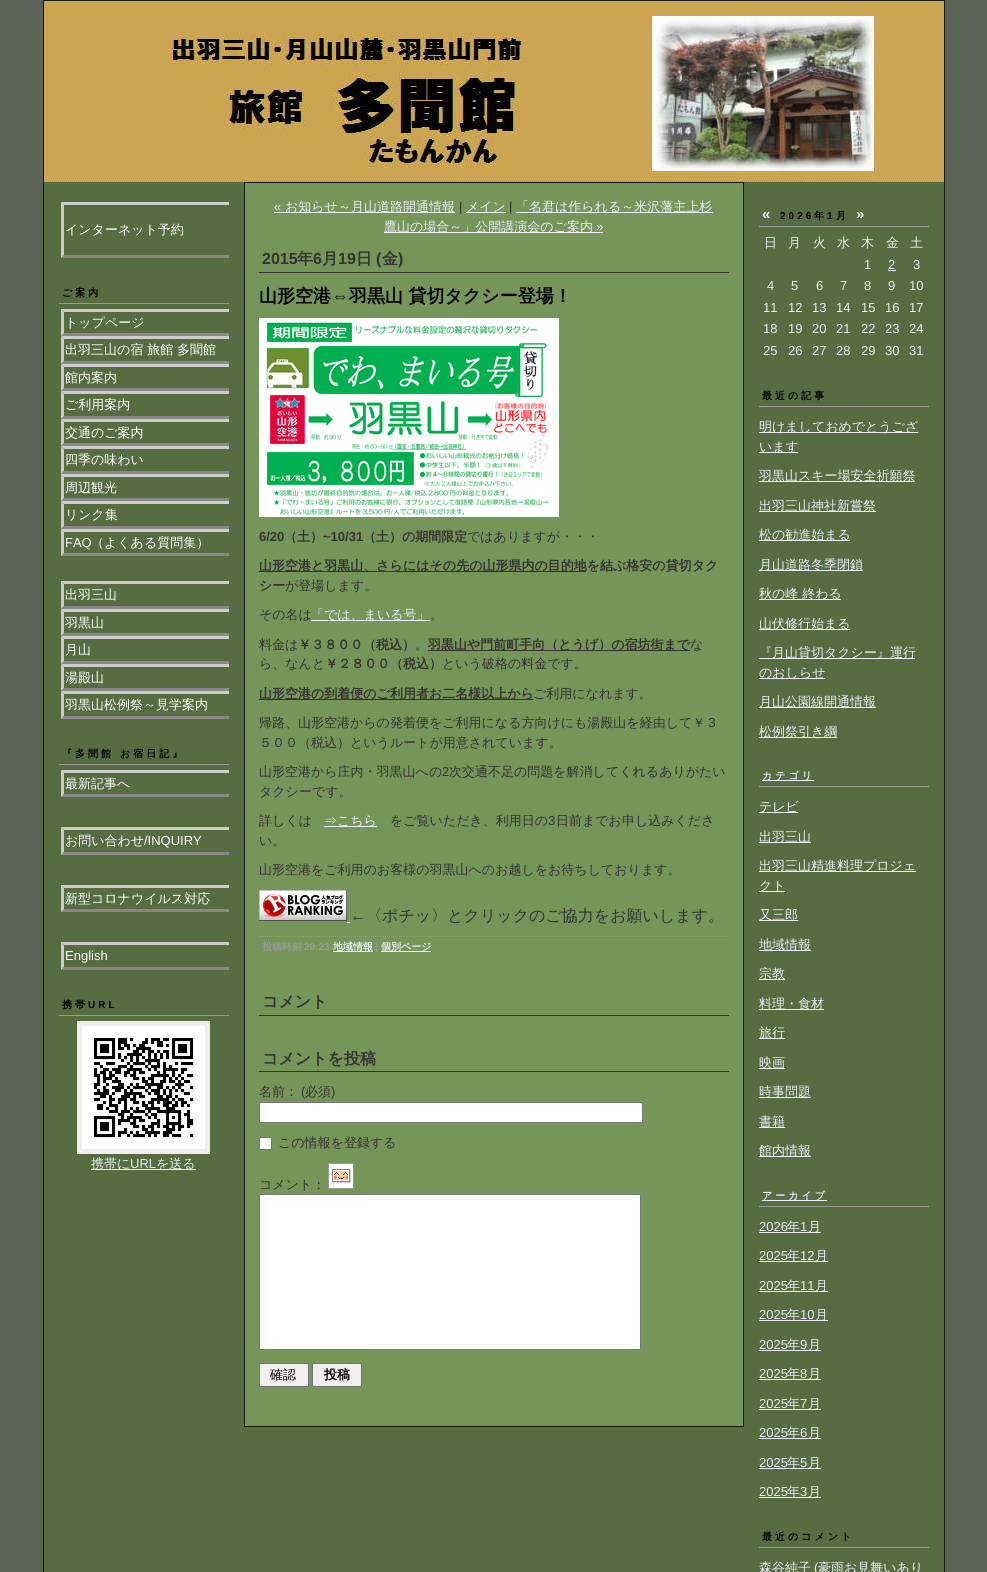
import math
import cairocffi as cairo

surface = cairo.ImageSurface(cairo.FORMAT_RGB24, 987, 1572)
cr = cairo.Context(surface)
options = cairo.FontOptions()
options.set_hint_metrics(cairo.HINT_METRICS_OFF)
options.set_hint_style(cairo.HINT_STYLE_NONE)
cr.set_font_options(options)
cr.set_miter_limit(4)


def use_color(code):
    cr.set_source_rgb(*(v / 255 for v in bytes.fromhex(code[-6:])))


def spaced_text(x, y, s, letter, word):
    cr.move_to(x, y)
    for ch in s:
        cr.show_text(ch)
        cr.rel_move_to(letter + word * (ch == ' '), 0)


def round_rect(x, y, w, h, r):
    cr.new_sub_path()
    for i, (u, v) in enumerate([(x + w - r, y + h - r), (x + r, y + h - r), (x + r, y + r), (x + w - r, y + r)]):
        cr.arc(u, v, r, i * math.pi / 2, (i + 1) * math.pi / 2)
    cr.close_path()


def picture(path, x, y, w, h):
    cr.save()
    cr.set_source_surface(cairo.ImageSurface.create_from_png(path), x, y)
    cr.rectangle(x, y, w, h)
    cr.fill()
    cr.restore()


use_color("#5b6356")
cr.paint()
use_color("#556d41")
cr.rectangle(44, 182, 900, 1390)
cr.fill()
cr.rectangle(43.5, 0.5, 901, 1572)
use_color("#171916")
cr.set_line_width(1)
cr.stroke()
use_color("#99cc66")
cr.rectangle(45, 181, 899, 1)
cr.fill()
picture("img1.png", 44, 1, 900, 180)
cr.new_path()
cr.move_to(44, 181.5)
cr.line_to(944, 181.5)
use_color("#6699cc")
cr.set_dash([1, 1])
cr.stroke()
cr.save()
cr.rectangle(59, 197, 170, 81)
cr.clip()
use_color("#cccccc")
cr.new_path()
cr.move_to(61, 202)
cr.line_to(257, 202)
cr.line_to(254, 205)
cr.line_to(64, 205)
cr.close_path()
cr.fill()
use_color("#888888")
cr.new_path()
cr.move_to(257, 258)
cr.line_to(61, 258)
cr.line_to(64, 255)
cr.line_to(254, 255)
cr.close_path()
cr.fill()
cr.restore()
use_color("#cccccc")
cr.new_path()
cr.move_to(61, 258)
cr.line_to(61, 202)
cr.line_to(64, 205)
cr.line_to(64, 255)
cr.close_path()
cr.fill()
cr.select_font_face("WenQuanYi Zen Hei Medium")
cr.set_font_size(13)
use_color("#ffffff")
cr.move_to(65, 234)
cr.show_text("インターネット予約")
use_color("#999999")
cr.rectangle(59, 303, 170, 1)
cr.fill()
cr.select_font_face("WenQuanYi Zen Hei", cairo.FONT_SLANT_NORMAL, cairo.FONT_WEIGHT_BOLD)
cr.set_font_size(10)
use_color("#000000")
spaced_text(62, 296, "ご案内", 3, 0)
cr.save()
cr.rectangle(59, 278, 170, 298)
cr.clip()
use_color("#cccccc")
cr.new_path()
cr.move_to(61, 309)
cr.line_to(257, 309)
cr.line_to(254, 312)
cr.line_to(64, 312)
cr.close_path()
cr.fill()
use_color("#888888")
cr.new_path()
cr.move_to(257, 336)
cr.line_to(61, 336)
cr.line_to(64, 333)
cr.line_to(254, 333)
cr.close_path()
cr.fill()
cr.restore()
use_color("#cccccc")
cr.new_path()
cr.move_to(61, 336)
cr.line_to(61, 309)
cr.line_to(64, 312)
cr.line_to(64, 333)
cr.close_path()
cr.fill()
cr.select_font_face("WenQuanYi Zen Hei Medium")
cr.set_font_size(13)
use_color("#ffffff")
cr.move_to(65, 327)
cr.show_text("トップページ")
cr.save()
cr.rectangle(59, 278, 170, 298)
cr.clip()
use_color("#cccccc")
cr.new_path()
cr.move_to(61, 336)
cr.line_to(257, 336)
cr.line_to(254, 339)
cr.line_to(64, 339)
cr.close_path()
cr.fill()
use_color("#888888")
cr.new_path()
cr.move_to(257, 364)
cr.line_to(61, 364)
cr.line_to(64, 361)
cr.line_to(254, 361)
cr.close_path()
cr.fill()
cr.restore()
use_color("#cccccc")
cr.new_path()
cr.move_to(61, 364)
cr.line_to(61, 336)
cr.line_to(64, 339)
cr.line_to(64, 361)
cr.close_path()
cr.fill()
use_color("#ffffff")
cr.move_to(65, 354)
cr.show_text("出羽三山の宿 旅館 多聞館")
cr.save()
cr.rectangle(59, 278, 170, 298)
cr.clip()
use_color("#cccccc")
cr.new_path()
cr.move_to(61, 364)
cr.line_to(257, 364)
cr.line_to(254, 367)
cr.line_to(64, 367)
cr.close_path()
cr.fill()
use_color("#888888")
cr.new_path()
cr.move_to(257, 391)
cr.line_to(61, 391)
cr.line_to(64, 388)
cr.line_to(254, 388)
cr.close_path()
cr.fill()
cr.restore()
use_color("#cccccc")
cr.new_path()
cr.move_to(61, 391)
cr.line_to(61, 364)
cr.line_to(64, 367)
cr.line_to(64, 388)
cr.close_path()
cr.fill()
use_color("#ffffff")
cr.move_to(65, 382)
cr.show_text("館内案内")
cr.save()
cr.rectangle(59, 278, 170, 298)
cr.clip()
use_color("#cccccc")
cr.new_path()
cr.move_to(61, 391)
cr.line_to(257, 391)
cr.line_to(254, 394)
cr.line_to(64, 394)
cr.close_path()
cr.fill()
use_color("#888888")
cr.new_path()
cr.move_to(257, 419)
cr.line_to(61, 419)
cr.line_to(64, 416)
cr.line_to(254, 416)
cr.close_path()
cr.fill()
cr.restore()
use_color("#cccccc")
cr.new_path()
cr.move_to(61, 419)
cr.line_to(61, 391)
cr.line_to(64, 394)
cr.line_to(64, 416)
cr.close_path()
cr.fill()
use_color("#ffffff")
cr.move_to(65, 409)
cr.show_text("ご利用案内")
cr.save()
cr.rectangle(59, 278, 170, 298)
cr.clip()
use_color("#cccccc")
cr.new_path()
cr.move_to(61, 419)
cr.line_to(257, 419)
cr.line_to(254, 422)
cr.line_to(64, 422)
cr.close_path()
cr.fill()
use_color("#888888")
cr.new_path()
cr.move_to(257, 446)
cr.line_to(61, 446)
cr.line_to(64, 443)
cr.line_to(254, 443)
cr.close_path()
cr.fill()
cr.restore()
use_color("#cccccc")
cr.new_path()
cr.move_to(61, 446)
cr.line_to(61, 419)
cr.line_to(64, 422)
cr.line_to(64, 443)
cr.close_path()
cr.fill()
use_color("#ffffff")
cr.move_to(65, 437)
cr.show_text("交通のご案内")
cr.save()
cr.rectangle(59, 278, 170, 298)
cr.clip()
use_color("#cccccc")
cr.new_path()
cr.move_to(61, 446)
cr.line_to(257, 446)
cr.line_to(254, 449)
cr.line_to(64, 449)
cr.close_path()
cr.fill()
use_color("#888888")
cr.new_path()
cr.move_to(257, 474)
cr.line_to(61, 474)
cr.line_to(64, 471)
cr.line_to(254, 471)
cr.close_path()
cr.fill()
cr.restore()
use_color("#cccccc")
cr.new_path()
cr.move_to(61, 474)
cr.line_to(61, 446)
cr.line_to(64, 449)
cr.line_to(64, 471)
cr.close_path()
cr.fill()
use_color("#ffffff")
cr.move_to(65, 464)
cr.show_text("四季の味わい")
cr.save()
cr.rectangle(59, 278, 170, 298)
cr.clip()
use_color("#cccccc")
cr.new_path()
cr.move_to(61, 474)
cr.line_to(257, 474)
cr.line_to(254, 477)
cr.line_to(64, 477)
cr.close_path()
cr.fill()
use_color("#888888")
cr.new_path()
cr.move_to(257, 501)
cr.line_to(61, 501)
cr.line_to(64, 498)
cr.line_to(254, 498)
cr.close_path()
cr.fill()
cr.restore()
use_color("#cccccc")
cr.new_path()
cr.move_to(61, 501)
cr.line_to(61, 474)
cr.line_to(64, 477)
cr.line_to(64, 498)
cr.close_path()
cr.fill()
use_color("#ffffff")
cr.move_to(65, 492)
cr.show_text("周辺観光")
cr.save()
cr.rectangle(59, 278, 170, 298)
cr.clip()
use_color("#cccccc")
cr.new_path()
cr.move_to(61, 501)
cr.line_to(257, 501)
cr.line_to(254, 504)
cr.line_to(64, 504)
cr.close_path()
cr.fill()
use_color("#888888")
cr.new_path()
cr.move_to(257, 529)
cr.line_to(61, 529)
cr.line_to(64, 526)
cr.line_to(254, 526)
cr.close_path()
cr.fill()
cr.restore()
use_color("#cccccc")
cr.new_path()
cr.move_to(61, 529)
cr.line_to(61, 501)
cr.line_to(64, 504)
cr.line_to(64, 526)
cr.close_path()
cr.fill()
use_color("#ffffff")
cr.move_to(65, 519)
cr.show_text("リンク集")
cr.save()
cr.rectangle(59, 278, 170, 298)
cr.clip()
use_color("#cccccc")
cr.new_path()
cr.move_to(61, 529)
cr.line_to(257, 529)
cr.line_to(254, 532)
cr.line_to(64, 532)
cr.close_path()
cr.fill()
use_color("#888888")
cr.new_path()
cr.move_to(257, 556)
cr.line_to(61, 556)
cr.line_to(64, 553)
cr.line_to(254, 553)
cr.close_path()
cr.fill()
cr.restore()
use_color("#cccccc")
cr.new_path()
cr.move_to(61, 556)
cr.line_to(61, 529)
cr.line_to(64, 532)
cr.line_to(64, 553)
cr.close_path()
cr.fill()
cr.select_font_face("Liberation Sans")
use_color("#ffffff")
cr.move_to(65, 547)
cr.show_text("FAQ")
cr.select_font_face("WenQuanYi Zen Hei Medium")
cr.move_to(91, 547)
cr.show_text("（よくある質問集）")
cr.save()
cr.rectangle(59, 576, 170, 163)
cr.clip()
use_color("#cccccc")
cr.new_path()
cr.move_to(61, 581)
cr.line_to(257, 581)
cr.line_to(254, 584)
cr.line_to(64, 584)
cr.close_path()
cr.fill()
use_color("#888888")
cr.new_path()
cr.move_to(257, 609)
cr.line_to(61, 609)
cr.line_to(64, 606)
cr.line_to(254, 606)
cr.close_path()
cr.fill()
cr.restore()
use_color("#cccccc")
cr.new_path()
cr.move_to(61, 609)
cr.line_to(61, 581)
cr.line_to(64, 584)
cr.line_to(64, 606)
cr.close_path()
cr.fill()
use_color("#ffffff")
cr.move_to(65, 599)
cr.show_text("出羽三山")
cr.save()
cr.rectangle(59, 576, 170, 163)
cr.clip()
use_color("#cccccc")
cr.new_path()
cr.move_to(61, 609)
cr.line_to(257, 609)
cr.line_to(254, 612)
cr.line_to(64, 612)
cr.close_path()
cr.fill()
use_color("#888888")
cr.new_path()
cr.move_to(257, 636)
cr.line_to(61, 636)
cr.line_to(64, 633)
cr.line_to(254, 633)
cr.close_path()
cr.fill()
cr.restore()
use_color("#cccccc")
cr.new_path()
cr.move_to(61, 636)
cr.line_to(61, 609)
cr.line_to(64, 612)
cr.line_to(64, 633)
cr.close_path()
cr.fill()
use_color("#ffffff")
cr.move_to(65, 627)
cr.show_text("羽黒山")
cr.save()
cr.rectangle(59, 576, 170, 163)
cr.clip()
use_color("#cccccc")
cr.new_path()
cr.move_to(61, 636)
cr.line_to(257, 636)
cr.line_to(254, 639)
cr.line_to(64, 639)
cr.close_path()
cr.fill()
use_color("#888888")
cr.new_path()
cr.move_to(257, 664)
cr.line_to(61, 664)
cr.line_to(64, 661)
cr.line_to(254, 661)
cr.close_path()
cr.fill()
cr.restore()
use_color("#cccccc")
cr.new_path()
cr.move_to(61, 664)
cr.line_to(61, 636)
cr.line_to(64, 639)
cr.line_to(64, 661)
cr.close_path()
cr.fill()
use_color("#ffffff")
cr.move_to(65, 654)
cr.show_text("月山")
cr.save()
cr.rectangle(59, 576, 170, 163)
cr.clip()
use_color("#cccccc")
cr.new_path()
cr.move_to(61, 664)
cr.line_to(257, 664)
cr.line_to(254, 667)
cr.line_to(64, 667)
cr.close_path()
cr.fill()
use_color("#888888")
cr.new_path()
cr.move_to(257, 691)
cr.line_to(61, 691)
cr.line_to(64, 688)
cr.line_to(254, 688)
cr.close_path()
cr.fill()
cr.restore()
use_color("#cccccc")
cr.new_path()
cr.move_to(61, 691)
cr.line_to(61, 664)
cr.line_to(64, 667)
cr.line_to(64, 688)
cr.close_path()
cr.fill()
use_color("#ffffff")
cr.move_to(65, 682)
cr.show_text("湯殿山")
cr.save()
cr.rectangle(59, 576, 170, 163)
cr.clip()
use_color("#cccccc")
cr.new_path()
cr.move_to(61, 691)
cr.line_to(257, 691)
cr.line_to(254, 694)
cr.line_to(64, 694)
cr.close_path()
cr.fill()
use_color("#888888")
cr.new_path()
cr.move_to(257, 719)
cr.line_to(61, 719)
cr.line_to(64, 716)
cr.line_to(254, 716)
cr.close_path()
cr.fill()
cr.restore()
use_color("#cccccc")
cr.new_path()
cr.move_to(61, 719)
cr.line_to(61, 691)
cr.line_to(64, 694)
cr.line_to(64, 716)
cr.close_path()
cr.fill()
use_color("#ffffff")
cr.move_to(65, 709)
cr.show_text("羽黒山松例祭～見学案内")
use_color("#999999")
cr.rectangle(59, 764, 170, 1)
cr.fill()
cr.select_font_face("WenQuanYi Zen Hei", cairo.FONT_SLANT_NORMAL, cairo.FONT_WEIGHT_BOLD)
cr.set_font_size(10)
use_color("#000000")
spaced_text(62, 757, "『多聞館 お宿日記』", 3, 0)
cr.save()
cr.rectangle(59, 739, 170, 78)
cr.clip()
use_color("#cccccc")
cr.new_path()
cr.move_to(61, 770)
cr.line_to(257, 770)
cr.line_to(254, 773)
cr.line_to(64, 773)
cr.close_path()
cr.fill()
use_color("#888888")
cr.new_path()
cr.move_to(257, 797)
cr.line_to(61, 797)
cr.line_to(64, 794)
cr.line_to(254, 794)
cr.close_path()
cr.fill()
cr.restore()
use_color("#cccccc")
cr.new_path()
cr.move_to(61, 797)
cr.line_to(61, 770)
cr.line_to(64, 773)
cr.line_to(64, 794)
cr.close_path()
cr.fill()
cr.select_font_face("WenQuanYi Zen Hei Medium")
cr.set_font_size(13)
use_color("#ffffff")
cr.move_to(65, 788)
cr.show_text("最新記事へ")
cr.save()
cr.rectangle(59, 817, 170, 58)
cr.clip()
use_color("#cccccc")
cr.new_path()
cr.move_to(61, 827)
cr.line_to(257, 827)
cr.line_to(254, 830)
cr.line_to(64, 830)
cr.close_path()
cr.fill()
use_color("#888888")
cr.new_path()
cr.move_to(257, 855)
cr.line_to(61, 855)
cr.line_to(64, 852)
cr.line_to(254, 852)
cr.close_path()
cr.fill()
cr.restore()
use_color("#cccccc")
cr.new_path()
cr.move_to(61, 855)
cr.line_to(61, 827)
cr.line_to(64, 830)
cr.line_to(64, 852)
cr.close_path()
cr.fill()
use_color("#ffffff")
cr.move_to(65, 845)
cr.show_text("お問い合わせ")
cr.select_font_face("Liberation Sans")
cr.move_to(144, 845)
cr.show_text("/INQUIRY")
cr.save()
cr.rectangle(59, 875, 170, 57)
cr.clip()
use_color("#cccccc")
cr.new_path()
cr.move_to(61, 885)
cr.line_to(257, 885)
cr.line_to(254, 888)
cr.line_to(64, 888)
cr.close_path()
cr.fill()
use_color("#888888")
cr.new_path()
cr.move_to(257, 912)
cr.line_to(61, 912)
cr.line_to(64, 909)
cr.line_to(254, 909)
cr.close_path()
cr.fill()
cr.restore()
use_color("#cccccc")
cr.new_path()
cr.move_to(61, 912)
cr.line_to(61, 885)
cr.line_to(64, 888)
cr.line_to(64, 909)
cr.close_path()
cr.fill()
cr.select_font_face("WenQuanYi Zen Hei Medium")
use_color("#ffffff")
cr.move_to(65, 903)
cr.show_text("新型コロナウイルス対応")
cr.save()
cr.rectangle(59, 932, 170, 58)
cr.clip()
use_color("#cccccc")
cr.new_path()
cr.move_to(61, 942)
cr.line_to(257, 942)
cr.line_to(254, 945)
cr.line_to(64, 945)
cr.close_path()
cr.fill()
use_color("#888888")
cr.new_path()
cr.move_to(257, 970)
cr.line_to(61, 970)
cr.line_to(64, 967)
cr.line_to(254, 967)
cr.close_path()
cr.fill()
cr.restore()
use_color("#cccccc")
cr.new_path()
cr.move_to(61, 970)
cr.line_to(61, 942)
cr.line_to(64, 945)
cr.line_to(64, 967)
cr.close_path()
cr.fill()
cr.select_font_face("Liberation Sans")
use_color("#ffffff")
cr.move_to(65, 960)
cr.show_text("English")
use_color("#999999")
cr.rectangle(59, 1015, 170, 1)
cr.fill()
cr.select_font_face("WenQuanYi Zen Hei", cairo.FONT_SLANT_NORMAL, cairo.FONT_WEIGHT_BOLD)
cr.set_font_size(10)
use_color("#000000")
spaced_text(62, 1008, "携帯", 3, 0)
cr.select_font_face("Liberation Sans", cairo.FONT_SLANT_NORMAL, cairo.FONT_WEIGHT_BOLD)
spaced_text(88, 1008, "URL", 3, 0)
cr.rectangle(79.5, 1023.5, 128, 128)
use_color("#eeeeee")
cr.set_line_width(5)
cr.set_dash([])
cr.stroke()
picture("img2.png", 82, 1026, 123, 123)
use_color("#eaedf7")
cr.rectangle(91, 1169, 105, 1)
cr.fill()
cr.select_font_face("WenQuanYi Zen Hei Medium")
cr.set_font_size(13)
cr.move_to(91, 1168)
cr.show_text("携帯に")
cr.select_font_face("Liberation Sans")
cr.move_to(130, 1168)
cr.show_text("URL")
cr.select_font_face("WenQuanYi Zen Hei Medium")
cr.move_to(156, 1168)
cr.show_text("を送る")
use_color("#759658")
cr.rectangle(244.5, 182.5, 499, 1244)
cr.fill_preserve()
use_color("#141911")
cr.set_line_width(1)
cr.stroke()
cr.select_font_face("Liberation Sans")
use_color("#eaedf7")
cr.move_to(274, 211)
cr.show_text("«")
cr.rectangle(274, 212, 181, 1)
cr.fill()
cr.select_font_face("WenQuanYi Zen Hei Medium")
cr.move_to(285, 211)
cr.show_text("お知らせ～月山道路開通情報")
cr.select_font_face("Liberation Sans")
use_color("#333333")
cr.move_to(459, 211)
cr.show_text("|")
use_color("#eaedf7")
cr.rectangle(466, 212, 40, 1)
cr.fill()
cr.select_font_face("WenQuanYi Zen Hei Medium")
cr.move_to(466, 211)
cr.show_text("メイン")
cr.select_font_face("Liberation Sans")
use_color("#333333")
cr.move_to(509, 211)
cr.show_text("|")
use_color("#eaedf7")
cr.rectangle(516, 212, 197, 1)
cr.fill()
cr.select_font_face("WenQuanYi Zen Hei Medium")
cr.move_to(516, 211)
cr.show_text("「名君は作られる～米沢藩主上杉")
cr.rectangle(384, 232, 219, 1)
cr.fill()
cr.move_to(384, 231)
cr.show_text("鷹山の場合～」公開講演会のご案内")
cr.select_font_face("Liberation Sans")
cr.move_to(596, 231)
cr.show_text("»")
use_color("#333333")
cr.rectangle(259, 272, 470, 1)
cr.fill()
cr.select_font_face("Liberation Sans", cairo.FONT_SLANT_NORMAL, cairo.FONT_WEIGHT_BOLD)
cr.set_font_size(16)
cr.move_to(262, 264)
cr.show_text("2015")
cr.select_font_face("WenQuanYi Zen Hei", cairo.FONT_SLANT_NORMAL, cairo.FONT_WEIGHT_BOLD)
cr.move_to(297, 264)
cr.show_text("年")
cr.select_font_face("Liberation Sans", cairo.FONT_SLANT_NORMAL, cairo.FONT_WEIGHT_BOLD)
cr.move_to(313, 264)
cr.show_text("6")
cr.select_font_face("WenQuanYi Zen Hei", cairo.FONT_SLANT_NORMAL, cairo.FONT_WEIGHT_BOLD)
cr.move_to(322, 264)
cr.show_text("月")
cr.select_font_face("Liberation Sans", cairo.FONT_SLANT_NORMAL, cairo.FONT_WEIGHT_BOLD)
cr.move_to(338, 264)
cr.show_text("19")
cr.select_font_face("WenQuanYi Zen Hei", cairo.FONT_SLANT_NORMAL, cairo.FONT_WEIGHT_BOLD)
cr.move_to(356, 264)
cr.show_text("日")
cr.select_font_face("Liberation Sans", cairo.FONT_SLANT_NORMAL, cairo.FONT_WEIGHT_BOLD)
cr.move_to(376, 264)
cr.show_text("(")
cr.select_font_face("WenQuanYi Zen Hei", cairo.FONT_SLANT_NORMAL, cairo.FONT_WEIGHT_BOLD)
cr.move_to(382, 264)
cr.show_text("金")
cr.select_font_face("Liberation Sans", cairo.FONT_SLANT_NORMAL, cairo.FONT_WEIGHT_BOLD)
cr.move_to(398, 264)
cr.show_text(")")
cr.select_font_face("WenQuanYi Zen Hei", cairo.FONT_SLANT_NORMAL, cairo.FONT_WEIGHT_BOLD)
cr.set_font_size(18)
use_color("#000000")
cr.move_to(259, 302)
cr.show_text("山形空港")
cr.select_font_face("Liberation Sans", cairo.FONT_SLANT_NORMAL, cairo.FONT_WEIGHT_BOLD)
cr.move_to(331, 302)
cr.show_text("⇔")
cr.select_font_face("WenQuanYi Zen Hei", cairo.FONT_SLANT_NORMAL, cairo.FONT_WEIGHT_BOLD)
cr.move_to(349, 302)
cr.show_text("羽黒山 貸切タクシー登場！")
picture("img3.png", 259, 318, 300, 199)
cr.select_font_face("Liberation Sans", cairo.FONT_SLANT_NORMAL, cairo.FONT_WEIGHT_BOLD)
cr.set_font_size(13)
use_color("#333333")
cr.move_to(259, 541)
cr.show_text("6/20")
cr.select_font_face("WenQuanYi Zen Hei", cairo.FONT_SLANT_NORMAL, cairo.FONT_WEIGHT_BOLD)
cr.move_to(284, 541)
cr.show_text("（土）")
cr.select_font_face("Liberation Sans", cairo.FONT_SLANT_NORMAL, cairo.FONT_WEIGHT_BOLD)
cr.move_to(323, 541)
cr.show_text("~10/31")
cr.select_font_face("WenQuanYi Zen Hei", cairo.FONT_SLANT_NORMAL, cairo.FONT_WEIGHT_BOLD)
cr.move_to(363, 541)
cr.show_text("（土）の期間限定")
cr.select_font_face("WenQuanYi Zen Hei Medium")
cr.move_to(467, 541)
cr.show_text("ではありますが・・・")
cr.rectangle(259, 571, 327, 1)
cr.fill()
cr.select_font_face("WenQuanYi Zen Hei", cairo.FONT_SLANT_NORMAL, cairo.FONT_WEIGHT_BOLD)
cr.move_to(259, 570)
cr.show_text("山形空港と羽黒山、さらにはその先の山形県内の目的地を結ぶ格安の貸切タク")
cr.move_to(259, 590)
cr.show_text("シー")
cr.select_font_face("WenQuanYi Zen Hei Medium")
cr.move_to(285, 590)
cr.show_text("が登場します。")
cr.move_to(259, 619)
cr.show_text("その名は")
use_color("#eaedf7")
cr.rectangle(311, 620, 119, 1)
cr.fill()
cr.move_to(311, 619)
cr.show_text("「では、まいる号」")
use_color("#333333")
cr.move_to(430, 619)
cr.show_text("。")
cr.move_to(259, 649)
cr.show_text("料金は")
cr.select_font_face("WenQuanYi Zen Hei", cairo.FONT_SLANT_NORMAL, cairo.FONT_WEIGHT_BOLD)
cr.move_to(298, 649)
cr.show_text("￥３８００（税込）")
cr.select_font_face("WenQuanYi Zen Hei Medium")
cr.move_to(415, 649)
cr.show_text("。")
cr.rectangle(428, 650, 262, 1)
cr.fill()
cr.select_font_face("WenQuanYi Zen Hei", cairo.FONT_SLANT_NORMAL, cairo.FONT_WEIGHT_BOLD)
cr.move_to(428, 649)
cr.show_text("羽黒山や門前町手向（とうげ）の宿坊街まで")
cr.select_font_face("WenQuanYi Zen Hei Medium")
cr.move_to(690, 649)
cr.show_text("な")
cr.move_to(259, 668)
cr.show_text("ら、なんと")
cr.select_font_face("WenQuanYi Zen Hei", cairo.FONT_SLANT_NORMAL, cairo.FONT_WEIGHT_BOLD)
cr.move_to(325, 668)
cr.show_text("￥２８００（税込）")
cr.select_font_face("WenQuanYi Zen Hei Medium")
cr.move_to(442, 668)
cr.show_text("という破格の料金です。")
cr.rectangle(259, 699, 274, 1)
cr.fill()
cr.select_font_face("WenQuanYi Zen Hei", cairo.FONT_SLANT_NORMAL, cairo.FONT_WEIGHT_BOLD)
cr.move_to(259, 698)
cr.show_text("山形空港の到着便のご利用者お二名様以上から")
cr.select_font_face("WenQuanYi Zen Hei Medium")
cr.move_to(533, 698)
cr.show_text("ご利用になれます。")
cr.move_to(259, 727)
cr.show_text("帰路、山形空港からの発着便をご利用になる方向けにも湯殿山を経由して￥３")
cr.move_to(259, 747)
cr.show_text("５００（税込）というルートが用意されています。")
cr.move_to(259, 776)
cr.show_text("山形空港から庄内・羽黒山への")
cr.select_font_face("Liberation Sans")
cr.move_to(442, 776)
cr.show_text("2")
cr.select_font_face("WenQuanYi Zen Hei Medium")
cr.move_to(449, 776)
cr.show_text("次交通不足の問題を解消してくれるありがたい")
cr.move_to(259, 796)
cr.show_text("タクシーです。")
cr.save()
cr.rectangle(259, 283, 470, 686)
cr.clip()
cr.move_to(259, 825)
cr.show_text("詳しくは")
cr.restore()
use_color("#eaedf7")
cr.rectangle(324, 826, 53, 1)
cr.fill()
cr.move_to(324, 825)
cr.show_text("⇒こちら")
use_color("#333333")
cr.move_to(390, 825)
cr.show_text("をご覧いただき、利用日の")
cr.select_font_face("Liberation Sans")
cr.move_to(548, 825)
cr.show_text("3")
cr.select_font_face("WenQuanYi Zen Hei Medium")
cr.move_to(556, 825)
cr.show_text("日前までお申し込みくださ")
cr.move_to(259, 845)
cr.show_text("い。")
cr.move_to(259, 874)
cr.show_text("山形空港をご利用のお客様の羽黒山へのお越しをお待ちしております。")
picture("img4.png", 259, 890, 88, 31)
cr.select_font_face("Liberation Sans")
cr.set_font_size(16)
cr.move_to(350, 921)
cr.show_text("←")
cr.select_font_face("WenQuanYi Zen Hei Medium")
cr.move_to(366, 921)
cr.show_text("〈ポチッ〉とクリックのご協力をお願いします。")
use_color("#eaedf7")
cr.rectangle(347, 922, 3, 1)
cr.fill()
cr.new_path()
cr.move_to(259, 936.5)
cr.line_to(729, 936.5)
use_color("#999999")
cr.set_dash([1, 1])
cr.stroke()
cr.select_font_face("WenQuanYi Zen Hei", cairo.FONT_SLANT_NORMAL, cairo.FONT_WEIGHT_BOLD)
cr.set_font_size(10)
cr.move_to(262, 950)
cr.show_text("投稿時刻")
cr.select_font_face("Liberation Sans", cairo.FONT_SLANT_NORMAL, cairo.FONT_WEIGHT_BOLD)
cr.move_to(304, 950)
cr.show_text("20:23")
use_color("#eaedf7")
cr.rectangle(333, 951, 40, 1)
cr.fill()
cr.select_font_face("WenQuanYi Zen Hei", cairo.FONT_SLANT_NORMAL, cairo.FONT_WEIGHT_BOLD)
cr.move_to(333, 950)
cr.show_text("地域情報")
cr.select_font_face("Liberation Sans", cairo.FONT_SLANT_NORMAL, cairo.FONT_WEIGHT_BOLD)
use_color("#999999")
cr.move_to(375, 950)
cr.show_text("|")
use_color("#eaedf7")
cr.rectangle(381, 951, 50, 1)
cr.fill()
cr.select_font_face("WenQuanYi Zen Hei", cairo.FONT_SLANT_NORMAL, cairo.FONT_WEIGHT_BOLD)
cr.move_to(381, 950)
cr.show_text("個別ページ")
use_color("#333333")
cr.rectangle(259, 1015, 470, 1)
cr.fill()
cr.set_font_size(16)
cr.move_to(262, 1007)
cr.show_text("コメント")
cr.rectangle(259, 1071, 470, 1)
cr.fill()
cr.move_to(262, 1064)
cr.show_text("コメントを投稿")
cr.select_font_face("WenQuanYi Zen Hei Medium")
cr.set_font_size(13)
cr.move_to(259, 1096)
cr.show_text("名前：")
cr.select_font_face("Liberation Sans")
cr.move_to(301, 1096)
cr.show_text("(")
cr.select_font_face("WenQuanYi Zen Hei Medium")
cr.move_to(305, 1096)
cr.show_text("必須")
cr.select_font_face("Liberation Sans")
cr.move_to(331, 1096)
cr.show_text(")")
use_color("#ffffff")
round_rect(259.5, 1102.5, 383, 20, 1.5)
cr.fill_preserve()
use_color("#767676")
cr.set_dash([])
cr.stroke()
use_color("#ffffff")
round_rect(259.5, 1137.5, 12, 12, 1.5)
cr.fill_preserve()
use_color("#767676")
cr.stroke()
cr.select_font_face("WenQuanYi Zen Hei Medium")
use_color("#333333")
cr.move_to(278, 1147)
cr.show_text("この情報を登録する")
use_color("#ffffff")
cr.rectangle(328.5, 1163.5, 25, 25)
cr.fill_preserve()
use_color("#999999")
cr.stroke()
picture("img5.png", 332, 1169, 19, 14)
use_color("#333333")
cr.move_to(259, 1189)
cr.show_text("コメント：")
use_color("#ffffff")
round_rect(259.5, 1194.5, 381, 155, 1.5)
cr.fill_preserve()
use_color("#767676")
cr.stroke()
use_color("#efefef")
round_rect(259.5, 1363.5, 49, 23, 1.5)
cr.fill_preserve()
use_color("#767676")
cr.stroke()
use_color("#000000")
cr.move_to(270, 1379)
cr.show_text("確認")
use_color("#efefef")
round_rect(312.5, 1363.5, 49, 23, 1.5)
cr.fill_preserve()
use_color("#767676")
cr.stroke()
cr.select_font_face("WenQuanYi Zen Hei", cairo.FONT_SLANT_NORMAL, cairo.FONT_WEIGHT_BOLD)
use_color("#000000")
cr.move_to(324, 1379)
cr.show_text("投稿")
use_color("#999999")
cr.rectangle(759, 226, 170, 1)
cr.fill()
cr.select_font_face("Liberation Sans", cairo.FONT_SLANT_NORMAL, cairo.FONT_WEIGHT_BOLD)
cr.set_font_size(15)
use_color("#eaedf7")
spaced_text(762, 219, "«", 3, 0)
cr.set_font_size(10)
use_color("#000000")
spaced_text(780, 219, "2026", 3, 0)
cr.select_font_face("WenQuanYi Zen Hei", cairo.FONT_SLANT_NORMAL, cairo.FONT_WEIGHT_BOLD)
spaced_text(814, 219, "年", 3, 0)
cr.select_font_face("Liberation Sans", cairo.FONT_SLANT_NORMAL, cairo.FONT_WEIGHT_BOLD)
spaced_text(827, 219, "1", 3, 0)
cr.select_font_face("WenQuanYi Zen Hei", cairo.FONT_SLANT_NORMAL, cairo.FONT_WEIGHT_BOLD)
spaced_text(836, 219, "月", 3, 0)
cr.select_font_face("Liberation Sans", cairo.FONT_SLANT_NORMAL, cairo.FONT_WEIGHT_BOLD)
cr.set_font_size(15)
use_color("#eaedf7")
spaced_text(856, 219, "»", 3, 0)
cr.select_font_face("WenQuanYi Zen Hei Medium")
cr.set_font_size(13)
cr.move_to(764, 247)
cr.show_text("日")
cr.move_to(788, 247)
cr.show_text("月")
cr.move_to(813, 247)
cr.show_text("火")
cr.move_to(837, 247)
cr.show_text("水")
cr.move_to(861, 247)
cr.show_text("木")
cr.move_to(886, 247)
cr.show_text("金")
cr.move_to(910, 247)
cr.show_text("土")
cr.select_font_face("Liberation Sans")
cr.move_to(864, 269)
cr.show_text("1")
cr.move_to(888, 269)
cr.show_text("2")
cr.rectangle(888, 270, 8, 1)
cr.fill()
cr.move_to(913, 269)
cr.show_text("3")
cr.move_to(767, 290)
cr.show_text("4")
cr.move_to(791, 290)
cr.show_text("5")
cr.move_to(816, 290)
cr.show_text("6")
cr.move_to(840, 290)
cr.show_text("7")
cr.move_to(864, 290)
cr.show_text("8")
cr.move_to(888, 290)
cr.show_text("9")
cr.move_to(909, 290)
cr.show_text("10")
cr.move_to(763, 312)
cr.show_text("11")
cr.move_to(788, 312)
cr.show_text("12")
cr.move_to(812, 312)
cr.show_text("13")
cr.move_to(836, 312)
cr.show_text("14")
cr.move_to(861, 312)
cr.show_text("15")
cr.move_to(885, 312)
cr.show_text("16")
cr.move_to(909, 312)
cr.show_text("17")
cr.move_to(763, 333)
cr.show_text("18")
cr.move_to(788, 333)
cr.show_text("19")
cr.move_to(812, 333)
cr.show_text("20")
cr.move_to(836, 333)
cr.show_text("21")
cr.move_to(861, 333)
cr.show_text("22")
cr.move_to(885, 333)
cr.show_text("23")
cr.move_to(909, 333)
cr.show_text("24")
cr.move_to(763, 355)
cr.show_text("25")
cr.move_to(788, 355)
cr.show_text("26")
cr.move_to(812, 355)
cr.show_text("27")
cr.move_to(836, 355)
cr.show_text("28")
cr.move_to(861, 355)
cr.show_text("29")
cr.move_to(885, 355)
cr.show_text("30")
cr.move_to(909, 355)
cr.show_text("31")
use_color("#999999")
cr.rectangle(759, 406, 170, 1)
cr.fill()
cr.select_font_face("WenQuanYi Zen Hei", cairo.FONT_SLANT_NORMAL, cairo.FONT_WEIGHT_BOLD)
cr.set_font_size(10)
use_color("#000000")
spaced_text(762, 399, "最近の記事", 3, 0)
use_color("#eaedf7")
cr.rectangle(759, 432, 159, 1)
cr.fill()
cr.select_font_face("WenQuanYi Zen Hei Medium")
cr.set_font_size(13)
cr.move_to(759, 431)
cr.show_text("明けましておめでとうござ")
cr.rectangle(759, 452, 39, 1)
cr.fill()
cr.move_to(759, 451)
cr.show_text("います")
cr.rectangle(759, 481, 156, 1)
cr.fill()
cr.move_to(759, 480)
cr.show_text("羽黒山スキー場安全祈願祭")
cr.rectangle(759, 511, 117, 1)
cr.fill()
cr.move_to(759, 510)
cr.show_text("出羽三山神社新嘗祭")
cr.rectangle(759, 540, 91, 1)
cr.fill()
cr.move_to(759, 539)
cr.show_text("松の勧進始まる")
cr.rectangle(759, 570, 104, 1)
cr.fill()
cr.move_to(759, 569)
cr.show_text("月山道路冬季閉鎖")
cr.rectangle(759, 599, 82, 1)
cr.fill()
cr.move_to(759, 598)
cr.show_text("秋の峰 終わる")
cr.rectangle(759, 629, 91, 1)
cr.fill()
cr.move_to(759, 628)
cr.show_text("山伏修行始まる")
cr.rectangle(759, 658, 156, 1)
cr.fill()
cr.move_to(759, 657)
cr.show_text("『月山貸切タクシー』運行")
cr.rectangle(759, 678, 66, 1)
cr.fill()
cr.move_to(759, 677)
cr.show_text("のおしらせ")
cr.rectangle(759, 707, 117, 1)
cr.fill()
cr.move_to(759, 706)
cr.show_text("月山公園線開通情報")
cr.rectangle(759, 737, 78, 1)
cr.fill()
cr.move_to(759, 736)
cr.show_text("松例祭引き綱")
use_color("#999999")
cr.rectangle(759, 786, 170, 1)
cr.fill()
use_color("#eaedf7")
cr.rectangle(762, 780, 52, 1)
cr.fill()
cr.select_font_face("WenQuanYi Zen Hei", cairo.FONT_SLANT_NORMAL, cairo.FONT_WEIGHT_BOLD)
cr.set_font_size(10)
spaced_text(762, 779, "カテゴリ", 3, 0)
cr.rectangle(759, 812, 39, 1)
cr.fill()
cr.select_font_face("WenQuanYi Zen Hei Medium")
cr.set_font_size(13)
cr.move_to(759, 811)
cr.show_text("テレビ")
cr.rectangle(759, 842, 52, 1)
cr.fill()
cr.move_to(759, 841)
cr.show_text("出羽三山")
cr.rectangle(759, 871, 157, 1)
cr.fill()
cr.move_to(759, 870)
cr.show_text("出羽三山精進料理プロジェ")
cr.rectangle(759, 891, 26, 1)
cr.fill()
cr.move_to(759, 890)
cr.show_text("クト")
cr.rectangle(759, 920, 39, 1)
cr.fill()
cr.move_to(759, 919)
cr.show_text("又三郎")
cr.rectangle(759, 950, 52, 1)
cr.fill()
cr.save()
cr.rectangle(759, 761, 170, 420)
cr.clip()
cr.move_to(759, 949)
cr.show_text("地域情報")
cr.restore()
cr.rectangle(759, 979, 26, 1)
cr.fill()
cr.move_to(759, 978)
cr.show_text("宗教")
cr.rectangle(759, 1009, 65, 1)
cr.fill()
cr.move_to(759, 1008)
cr.show_text("料理・食材")
cr.rectangle(759, 1038, 26, 1)
cr.fill()
cr.move_to(759, 1037)
cr.show_text("旅行")
cr.rectangle(759, 1068, 26, 1)
cr.fill()
cr.move_to(759, 1067)
cr.show_text("映画")
cr.rectangle(759, 1097, 52, 1)
cr.fill()
cr.move_to(759, 1096)
cr.show_text("時事問題")
cr.rectangle(759, 1127, 26, 1)
cr.fill()
cr.move_to(759, 1126)
cr.show_text("書籍")
cr.rectangle(759, 1156, 52, 1)
cr.fill()
cr.move_to(759, 1155)
cr.show_text("館内情報")
use_color("#999999")
cr.rectangle(759, 1206, 170, 1)
cr.fill()
use_color("#eaedf7")
cr.rectangle(762, 1200, 65, 1)
cr.fill()
cr.select_font_face("WenQuanYi Zen Hei", cairo.FONT_SLANT_NORMAL, cairo.FONT_WEIGHT_BOLD)
cr.set_font_size(10)
spaced_text(762, 1199, "アーカイブ", 3, 0)
cr.select_font_face("Liberation Sans")
cr.set_font_size(13)
cr.move_to(759, 1231)
cr.show_text("2026")
cr.rectangle(759, 1232, 62, 1)
cr.fill()
cr.select_font_face("WenQuanYi Zen Hei Medium")
cr.move_to(787, 1231)
cr.show_text("年")
cr.select_font_face("Liberation Sans")
cr.move_to(800, 1231)
cr.show_text("1")
cr.select_font_face("WenQuanYi Zen Hei Medium")
cr.move_to(808, 1231)
cr.show_text("月")
cr.select_font_face("Liberation Sans")
cr.move_to(759, 1260)
cr.show_text("2025")
cr.rectangle(759, 1261, 69, 1)
cr.fill()
cr.select_font_face("WenQuanYi Zen Hei Medium")
cr.move_to(787, 1260)
cr.show_text("年")
cr.select_font_face("Liberation Sans")
cr.move_to(800, 1260)
cr.show_text("12")
cr.select_font_face("WenQuanYi Zen Hei Medium")
cr.move_to(815, 1260)
cr.show_text("月")
cr.select_font_face("Liberation Sans")
cr.move_to(759, 1290)
cr.show_text("2025")
cr.rectangle(759, 1291, 69, 1)
cr.fill()
cr.select_font_face("WenQuanYi Zen Hei Medium")
cr.move_to(787, 1290)
cr.show_text("年")
cr.select_font_face("Liberation Sans")
cr.move_to(800, 1290)
cr.show_text("11")
cr.select_font_face("WenQuanYi Zen Hei Medium")
cr.move_to(815, 1290)
cr.show_text("月")
cr.select_font_face("Liberation Sans")
cr.move_to(759, 1319)
cr.show_text("2025")
cr.rectangle(759, 1320, 69, 1)
cr.fill()
cr.select_font_face("WenQuanYi Zen Hei Medium")
cr.move_to(787, 1319)
cr.show_text("年")
cr.select_font_face("Liberation Sans")
cr.move_to(800, 1319)
cr.show_text("10")
cr.select_font_face("WenQuanYi Zen Hei Medium")
cr.move_to(815, 1319)
cr.show_text("月")
cr.select_font_face("Liberation Sans")
cr.move_to(759, 1349)
cr.show_text("2025")
cr.rectangle(759, 1350, 62, 1)
cr.fill()
cr.select_font_face("WenQuanYi Zen Hei Medium")
cr.move_to(787, 1349)
cr.show_text("年")
cr.select_font_face("Liberation Sans")
cr.move_to(800, 1349)
cr.show_text("9")
cr.select_font_face("WenQuanYi Zen Hei Medium")
cr.move_to(808, 1349)
cr.show_text("月")
cr.select_font_face("Liberation Sans")
cr.move_to(759, 1378)
cr.show_text("2025")
cr.rectangle(759, 1379, 62, 1)
cr.fill()
cr.select_font_face("WenQuanYi Zen Hei Medium")
cr.move_to(787, 1378)
cr.show_text("年")
cr.select_font_face("Liberation Sans")
cr.move_to(800, 1378)
cr.show_text("8")
cr.select_font_face("WenQuanYi Zen Hei Medium")
cr.move_to(808, 1378)
cr.show_text("月")
cr.select_font_face("Liberation Sans")
cr.move_to(759, 1408)
cr.show_text("2025")
cr.rectangle(759, 1409, 62, 1)
cr.fill()
cr.select_font_face("WenQuanYi Zen Hei Medium")
cr.move_to(787, 1408)
cr.show_text("年")
cr.select_font_face("Liberation Sans")
cr.move_to(800, 1408)
cr.show_text("7")
cr.select_font_face("WenQuanYi Zen Hei Medium")
cr.move_to(808, 1408)
cr.show_text("月")
cr.select_font_face("Liberation Sans")
cr.move_to(759, 1437)
cr.show_text("2025")
cr.rectangle(759, 1438, 62, 1)
cr.fill()
cr.select_font_face("WenQuanYi Zen Hei Medium")
cr.move_to(787, 1437)
cr.show_text("年")
cr.select_font_face("Liberation Sans")
cr.move_to(800, 1437)
cr.show_text("6")
cr.select_font_face("WenQuanYi Zen Hei Medium")
cr.move_to(808, 1437)
cr.show_text("月")
cr.select_font_face("Liberation Sans")
cr.move_to(759, 1467)
cr.show_text("2025")
cr.rectangle(759, 1468, 62, 1)
cr.fill()
cr.select_font_face("WenQuanYi Zen Hei Medium")
cr.move_to(787, 1467)
cr.show_text("年")
cr.select_font_face("Liberation Sans")
cr.move_to(800, 1467)
cr.show_text("5")
cr.select_font_face("WenQuanYi Zen Hei Medium")
cr.move_to(808, 1467)
cr.show_text("月")
cr.select_font_face("Liberation Sans")
cr.move_to(759, 1496)
cr.show_text("2025")
cr.rectangle(759, 1497, 62, 1)
cr.fill()
cr.select_font_face("WenQuanYi Zen Hei Medium")
cr.move_to(787, 1496)
cr.show_text("年")
cr.select_font_face("Liberation Sans")
cr.move_to(800, 1496)
cr.show_text("3")
cr.select_font_face("WenQuanYi Zen Hei Medium")
cr.move_to(808, 1496)
cr.show_text("月")
use_color("#999999")
cr.rectangle(759, 1547, 170, 1)
cr.fill()
cr.select_font_face("WenQuanYi Zen Hei", cairo.FONT_SLANT_NORMAL, cairo.FONT_WEIGHT_BOLD)
cr.set_font_size(10)
use_color("#000000")
spaced_text(762, 1540, "最近のコメント", 3, 0)
cr.select_font_face("WenQuanYi Zen Hei Medium")
cr.set_font_size(13)
use_color("#eaedf7")
cr.move_to(759, 1572)
cr.show_text("森谷純子")
cr.select_font_face("Liberation Sans")
cr.move_to(814, 1572)
cr.show_text("(")
cr.select_font_face("WenQuanYi Zen Hei Medium")
cr.move_to(818, 1572)
cr.show_text("豪雨お見舞いあり")
surface.write_to_png("result.png")
